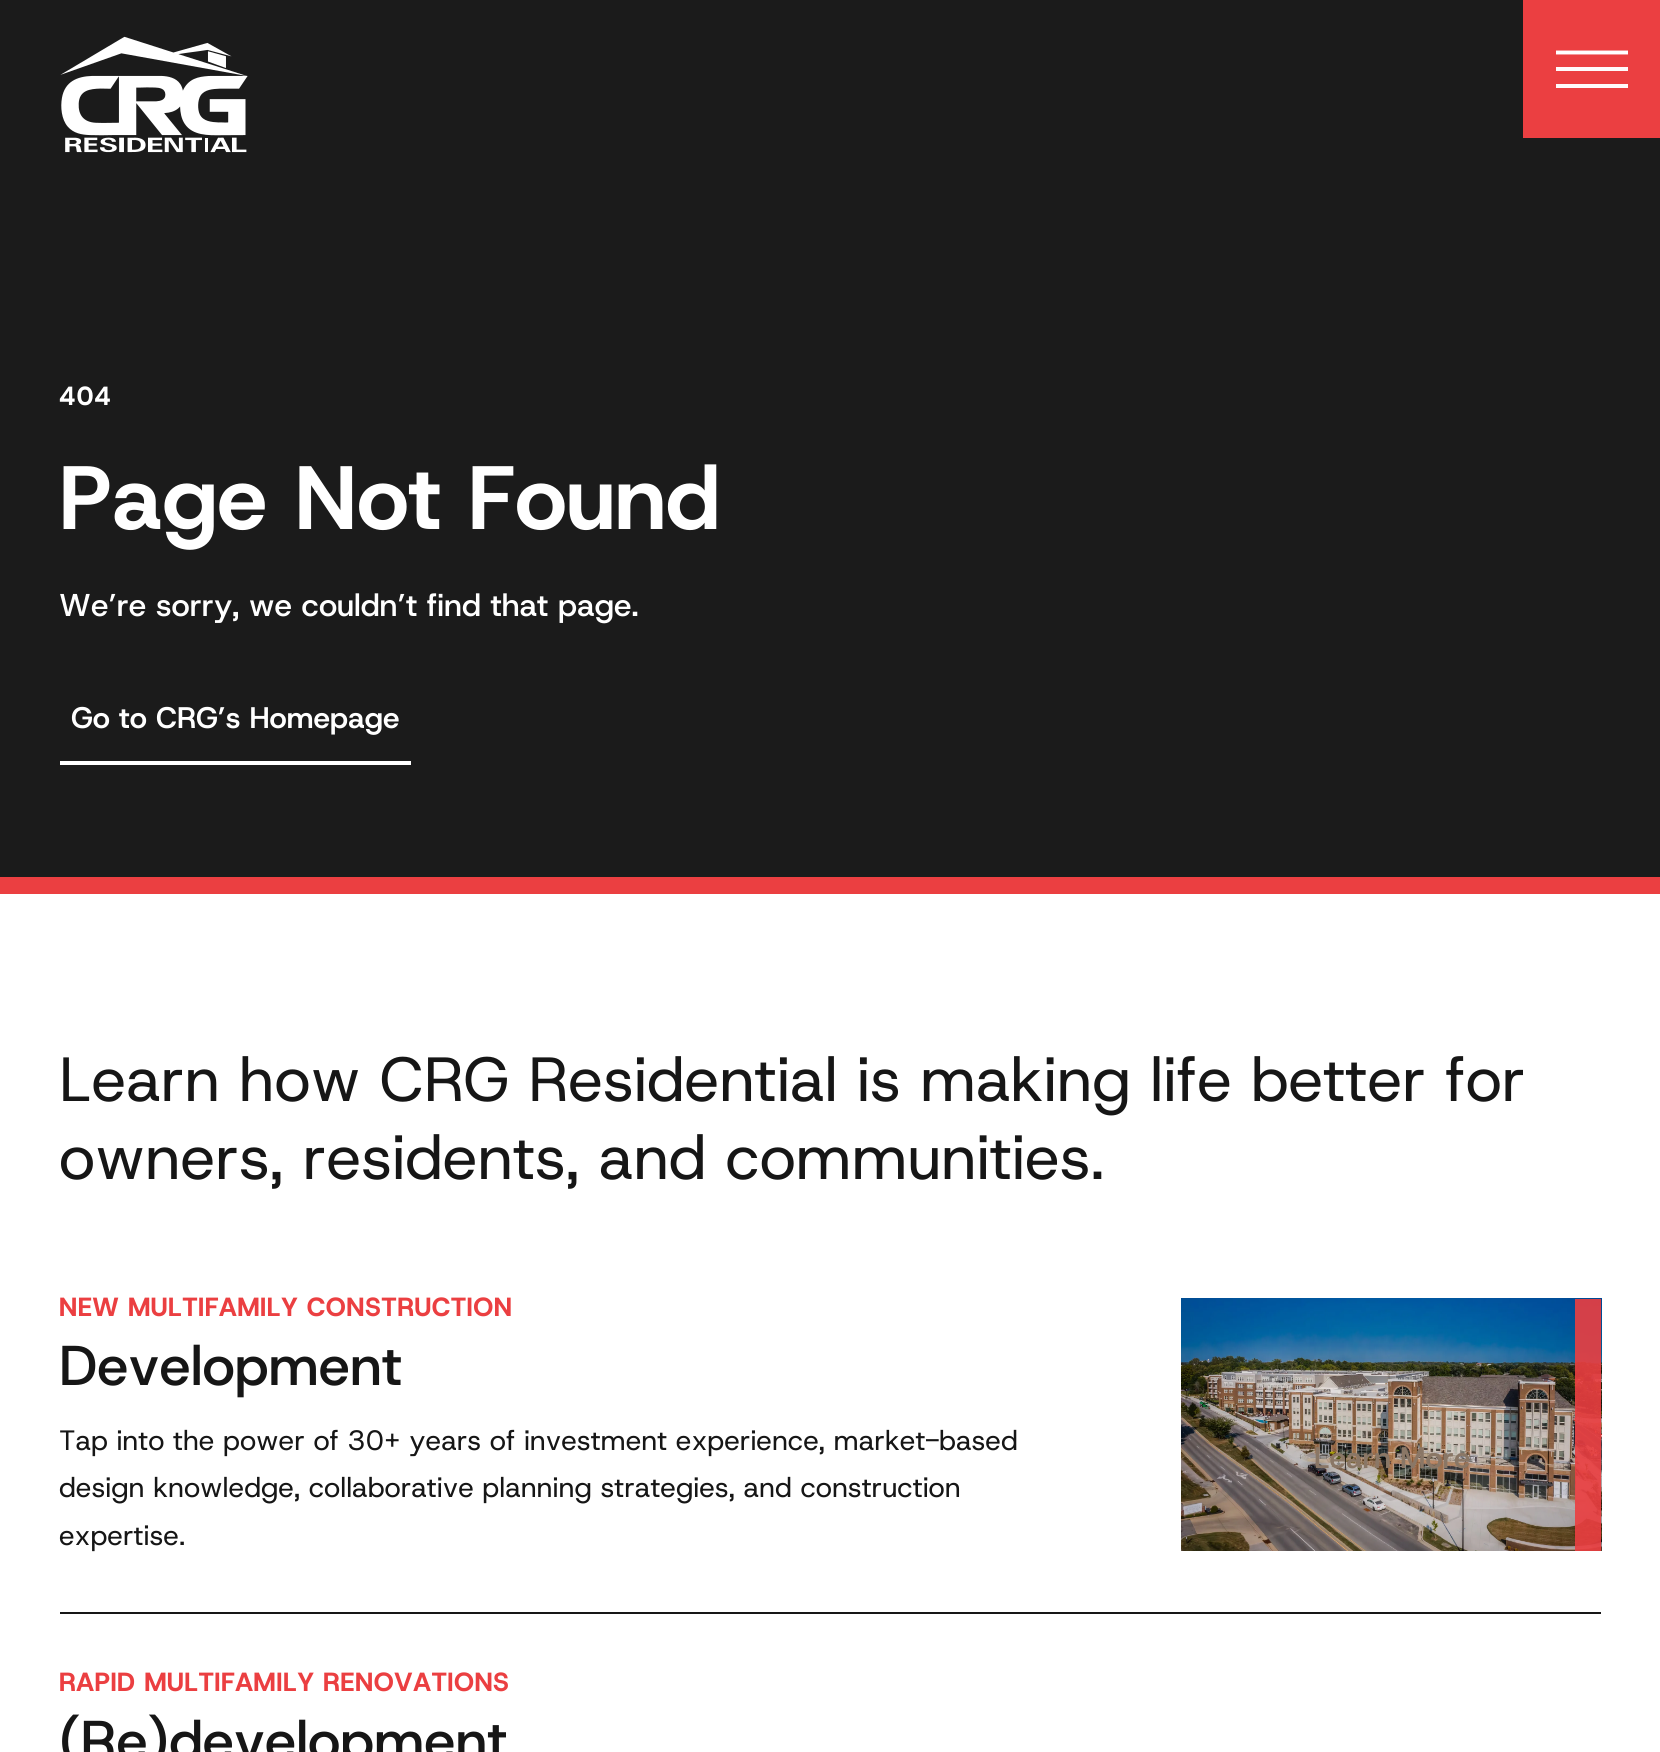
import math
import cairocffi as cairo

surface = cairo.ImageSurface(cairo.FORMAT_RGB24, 1660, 1752)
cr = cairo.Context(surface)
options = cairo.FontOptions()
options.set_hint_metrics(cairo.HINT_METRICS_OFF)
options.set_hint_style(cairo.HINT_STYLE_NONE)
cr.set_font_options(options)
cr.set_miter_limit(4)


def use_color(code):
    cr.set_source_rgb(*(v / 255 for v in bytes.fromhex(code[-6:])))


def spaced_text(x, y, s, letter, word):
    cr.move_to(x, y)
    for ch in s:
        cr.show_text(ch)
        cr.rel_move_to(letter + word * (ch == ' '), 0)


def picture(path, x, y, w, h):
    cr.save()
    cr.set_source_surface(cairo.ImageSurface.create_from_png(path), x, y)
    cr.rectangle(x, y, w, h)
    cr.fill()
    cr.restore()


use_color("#ffffff")
cr.paint()
use_color("#1b1b1b")
cr.rectangle(0, 0, 1660, 877)
cr.fill()
picture("img1.png", 60, 36, 188, 117)
use_color("#eb3f41")
cr.rectangle(1523, 0, 137, 138)
cr.fill()
cr.save()
cr.rectangle(1556, 33, 72, 72)
cr.clip()
cr.new_path()
cr.move_to(1556, 52.5)
cr.line_to(1629, 52.5)
use_color("#ffffff")
cr.set_line_width(3.9)
cr.stroke()
cr.restore()
use_color("#fffafa")
cr.rectangle(1556, 67, 72, 4)
cr.fill()
cr.rectangle(1556, 84, 72, 4)
cr.fill()
cr.select_font_face("Host Grotesk ExtraBold")
cr.set_font_size(26.25)
use_color("#ffffff")
spaced_text(59, 405, "404", 0.5, 0)
cr.select_font_face("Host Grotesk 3 Light")
cr.set_font_size(89.75)
cr.move_to(59, 529)
cr.show_text("Page Not Found")
cr.select_font_face("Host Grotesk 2 Light")
cr.set_font_size(31.5)
cr.move_to(59, 616)
cr.show_text("We’re sorry, we couldn’t find that page.")
cr.rectangle(60, 761, 351, 4)
cr.fill()
cr.select_font_face("Host Grotesk SemiBold")
cr.set_font_size(29.75)
cr.move_to(71, 728)
cr.show_text("Go to CRG’s Homepage")
use_color("#eb3f41")
cr.rectangle(0, 877, 1660, 17)
cr.fill()
cr.select_font_face("Host Grotesk Light")
cr.set_font_size(62.3)
use_color("#161616")
cr.move_to(59, 1101)
cr.show_text("Learn how CRG Residential is making life better for")
cr.move_to(59, 1179)
cr.show_text("owners, residents, and communities.")
cr.rectangle(60, 1612, 1541, 2)
cr.fill()
cr.select_font_face("Host Grotesk ExtraBold")
cr.set_font_size(26.25)
use_color("#eb3f41")
spaced_text(59, 1316, "NEW MULTIFAMILY CONSTRUCTION", 0.5, 0)
cr.select_font_face("Host Grotesk 2 Light")
cr.set_font_size(56)
use_color("#161616")
cr.move_to(59, 1385)
cr.show_text("Development")
cr.select_font_face("Host Grotesk Light")
cr.set_font_size(28)
cr.move_to(59, 1450)
cr.show_text("Tap into the power of 30+ years of investment experience, market-based")
cr.move_to(59, 1497)
cr.show_text("design knowledge, collaborative planning strategies, and construction")
cr.move_to(59, 1545)
cr.show_text("expertise.")
picture("img2.png", 1181, 1298, 421, 253)
cr.select_font_face("Host Grotesk SemiBold")
cr.set_font_size(29.75)
use_color("#8a7766")
cr.move_to(1314, 1468)
cr.show_text("Learn More")
cr.set_source_rgba(0.922, 0.247, 0.255, 0.9)
cr.rectangle(1575, 1299, 26, 252)
cr.fill()
cr.select_font_face("Host Grotesk ExtraBold")
cr.set_font_size(26.25)
use_color("#eb3f41")
spaced_text(59, 1691, "RAPID MULTIFAMILY RENOVATIONS", 0.5, 0)
cr.select_font_face("Host Grotesk 2 Light")
cr.set_font_size(56)
use_color("#161616")
cr.move_to(59, 1760)
cr.show_text("(Re)development")
surface.write_to_png("result.png")
